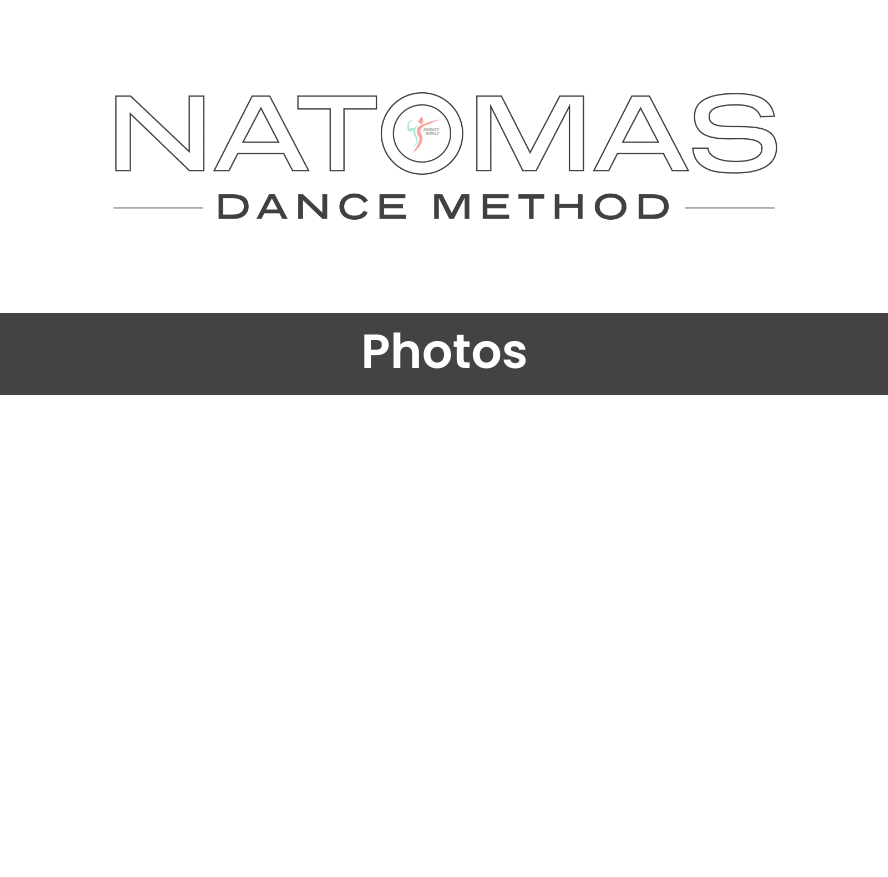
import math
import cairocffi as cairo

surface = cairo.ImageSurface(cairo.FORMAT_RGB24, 888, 877)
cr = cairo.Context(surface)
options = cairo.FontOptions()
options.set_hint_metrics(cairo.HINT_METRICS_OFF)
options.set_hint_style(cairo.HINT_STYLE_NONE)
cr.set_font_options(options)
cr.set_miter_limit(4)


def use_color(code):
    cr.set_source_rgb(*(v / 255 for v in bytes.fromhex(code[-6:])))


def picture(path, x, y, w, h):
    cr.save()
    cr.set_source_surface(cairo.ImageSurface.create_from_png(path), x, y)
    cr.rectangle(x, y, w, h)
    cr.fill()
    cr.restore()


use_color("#ffffff")
cr.paint()
picture("img1.png", 113, 92, 665, 128)
use_color("#454246")
cr.rectangle(0, 313, 888, 82)
cr.fill()
cr.select_font_face("Poppins SemiBold")
cr.set_font_size(48)
use_color("#ffffff")
cr.move_to(361, 368)
cr.show_text("Photos")
surface.write_to_png("result.png")
